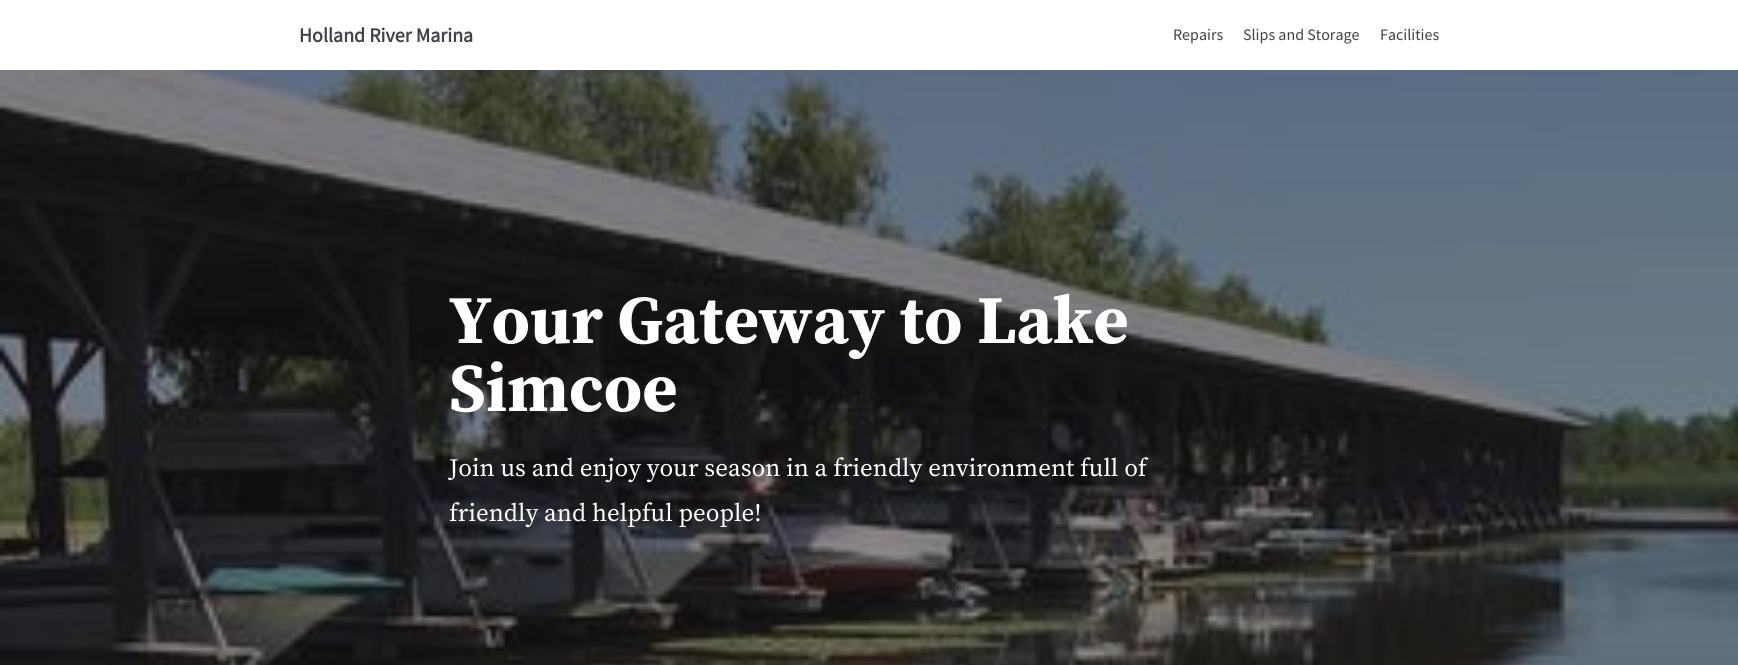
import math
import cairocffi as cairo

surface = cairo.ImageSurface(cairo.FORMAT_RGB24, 1738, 665)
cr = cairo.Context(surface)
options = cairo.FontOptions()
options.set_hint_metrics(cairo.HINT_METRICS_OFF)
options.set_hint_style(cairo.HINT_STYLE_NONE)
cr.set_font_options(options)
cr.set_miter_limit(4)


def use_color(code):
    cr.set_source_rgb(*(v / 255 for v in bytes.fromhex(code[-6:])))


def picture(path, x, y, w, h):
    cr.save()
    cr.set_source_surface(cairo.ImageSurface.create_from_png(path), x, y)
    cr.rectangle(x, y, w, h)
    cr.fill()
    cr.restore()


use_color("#ffffff")
cr.paint()
cr.select_font_face("Source Sans Pro", cairo.FONT_SLANT_NORMAL, cairo.FONT_WEIGHT_BOLD)
cr.set_font_size(20)
use_color("#404248")
cr.move_to(299, 42)
cr.show_text("Holland River Marina")
cr.select_font_face("Source Sans Pro")
cr.set_font_size(16)
cr.move_to(1173, 40)
cr.show_text("Repairs")
cr.move_to(1243, 40)
cr.show_text("Slips and Storage")
cr.move_to(1380, 40)
cr.show_text("Facilities")
picture("img1.png", 0, 70, 1738, 595)
cr.select_font_face("Source Serif Pro", cairo.FONT_SLANT_NORMAL, cairo.FONT_WEIGHT_BOLD)
cr.set_font_size(68)
use_color("#ffffff")
cr.move_to(449, 343)
cr.show_text("Your Gateway to Lake")
cr.move_to(449, 411)
cr.show_text("Simcoe")
cr.select_font_face("Source Serif Pro")
cr.set_font_size(25)
cr.move_to(449, 476)
cr.show_text("Join us and enjoy your season in a friendly environment full of")
cr.move_to(449, 521)
cr.show_text("friendly and helpful people!")
surface.write_to_png("result.png")
